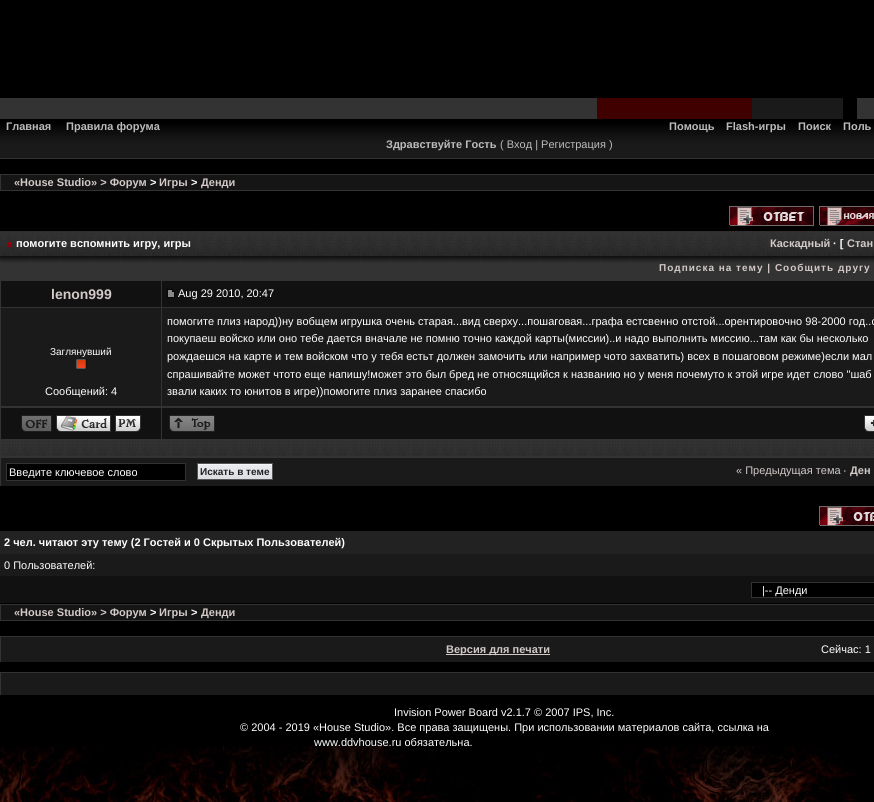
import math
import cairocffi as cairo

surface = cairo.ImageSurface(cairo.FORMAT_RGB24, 874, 802)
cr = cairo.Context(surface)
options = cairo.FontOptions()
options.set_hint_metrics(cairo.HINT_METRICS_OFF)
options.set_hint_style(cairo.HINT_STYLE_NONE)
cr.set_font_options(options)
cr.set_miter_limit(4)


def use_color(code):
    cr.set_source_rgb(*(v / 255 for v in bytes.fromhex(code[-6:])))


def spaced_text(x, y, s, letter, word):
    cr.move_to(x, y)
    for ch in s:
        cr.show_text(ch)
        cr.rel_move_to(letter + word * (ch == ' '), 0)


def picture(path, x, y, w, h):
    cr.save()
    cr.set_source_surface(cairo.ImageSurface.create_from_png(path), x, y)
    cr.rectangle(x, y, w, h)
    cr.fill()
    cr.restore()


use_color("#000000")
cr.paint()
picture("img1.png", 0, 746, 859, 56)
use_color("#333333")
cr.rectangle(0, 98, 597, 21)
cr.fill()
use_color("#410000")
cr.rectangle(597, 98, 155, 21)
cr.fill()
use_color("#1a1a1a")
cr.rectangle(752, 98, 91, 21)
cr.fill()
use_color("#333333")
cr.rectangle(857, 98, 17, 21)
cr.fill()
picture("img2.png", 0, 119, 874, 18)
cr.select_font_face("Liberation Sans", cairo.FONT_SLANT_NORMAL, cairo.FONT_WEIGHT_BOLD)
cr.set_font_size(11)
use_color("#bcbcbc")
cr.move_to(6, 130)
cr.show_text("Главная")
cr.move_to(66, 130)
cr.show_text("Правила форума")
cr.move_to(669, 130)
cr.show_text("Помощь")
cr.move_to(726, 130)
cr.show_text("Flash-игры")
cr.move_to(798, 130)
cr.show_text("Поиск")
cr.move_to(843, 130)
cr.show_text("Поль")
picture("img3.png", 0, 137, 874, 22)
cr.move_to(386, 148)
cr.show_text("Здравствуйте Гость")
cr.select_font_face("Liberation Sans")
cr.move_to(500, 148)
cr.show_text("( Вход | Регистрация )")
use_color("#151515")
cr.rectangle(0.5, 174.5, 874, 16)
cr.fill_preserve()
use_color("#333333")
cr.set_line_width(1)
cr.stroke()
cr.select_font_face("Liberation Sans", cairo.FONT_SLANT_NORMAL, cairo.FONT_WEIGHT_BOLD)
use_color("#d2c9c8")
cr.move_to(14, 186)
cr.show_text("«House Studio» > Форум")
use_color("#ffffff")
cr.move_to(150, 186)
cr.show_text(">")
use_color("#d2c9c8")
cr.move_to(159, 186)
cr.show_text("Игры")
use_color("#ffffff")
cr.move_to(191, 186)
cr.show_text(">")
use_color("#d2c9c8")
cr.move_to(201, 186)
cr.show_text("Денди")
picture("img4.png", 729, 206, 85, 20)
picture("img5.png", 819, 206, 55, 20)
use_color("#333333")
cr.rectangle(0, 263, 874, 195)
cr.fill()
picture("img6.png", 0, 231, 874, 25)
use_color("#8c0010")
cr.rectangle(8, 242, 3, 5)
cr.fill()
use_color("#ffffff")
cr.move_to(16, 247)
cr.show_text("помогите вспомнить игру, игры")
use_color("#d2c9c8")
cr.move_to(770, 247)
cr.show_text("Каскадный")
use_color("#ffffff")
cr.move_to(833, 247)
cr.show_text("· [")
use_color("#d2c9c8")
cr.move_to(847, 247)
cr.show_text("Стан")
picture("img7.png", 0, 256, 874, 7)
cr.set_font_size(10)
spaced_text(659, 271, "Подписка на тему | Сообщить другу", 1, 0)
use_color("#111111")
cr.rectangle(1, 281, 160, 26)
cr.fill()
cr.set_font_size(14)
use_color("#d2c9c8")
cr.move_to(51, 299)
cr.show_text("lenon999")
use_color("#111111")
cr.rectangle(162, 281, 712, 26)
cr.fill()
picture("img8.png", 167, 289, 8, 9)
cr.select_font_face("Liberation Sans")
cr.set_font_size(11)
use_color("#ffffff")
cr.move_to(178, 297)
cr.show_text("Aug 29 2010, 20:47")
use_color("#1a1a1a")
cr.rectangle(1, 308, 160, 98)
cr.fill()
cr.set_font_size(10)
use_color("#ffffff")
cr.move_to(50, 355)
cr.show_text("Заглянувший")
picture("img9.png", 76, 359, 11, 10)
cr.set_font_size(11)
cr.move_to(45, 395)
cr.show_text("Сообщений: 4")
use_color("#1a1a1a")
cr.rectangle(162, 308, 712, 98)
cr.fill()
use_color("#ffffff")
cr.move_to(167, 325)
cr.show_text("помогите плиз народ))ну вобщем игрушка очень старая...вид сверху...пошаговая...графа естсвенно отстой...орентировочно 98-2000 год..с")
cr.move_to(167, 342)
cr.show_text("покупаеш войско или оно тебе дается вначале не помню точно каждой карты(миссии)..и надо выполнить миссию...там как бы несколько")
cr.move_to(167, 360)
cr.show_text("рождаешся на карте и тем войском что у тебя естьт должен замочить или например чото захватить) всех в пошаговом режиме)если мал")
cr.move_to(167, 378)
cr.show_text("спрашивайте может чтото еще напишу!может это был бред не относящийся к названию но у меня почемуто к этой игре идет слово \"шаб")
cr.move_to(167, 395)
cr.show_text("звали каких то юнитов в игре))помогите плиз заранее спасибо")
use_color("#111111")
cr.rectangle(1, 408, 160, 31)
cr.fill()
picture("img10.png", 21, 415, 31, 17)
picture("img11.png", 56, 415, 55, 17)
picture("img12.png", 115, 415, 26, 17)
cr.rectangle(162, 408, 712, 31)
cr.fill()
picture("img13.png", 169, 415, 46, 17)
picture("img14.png", 864, 415, 10, 17)
picture("img15.png", 1, 441, 873, 15)
use_color("#1a1a1a")
cr.rectangle(1, 458, 873, 28)
cr.fill()
use_color("#333333")
cr.rectangle(0, 457, 1, 29)
cr.fill()
use_color("#000000")
cr.rectangle(6.5, 463.5, 179, 17)
cr.fill_preserve()
use_color("#333333")
cr.stroke()
cr.save()
cr.rectangle(9, 466, 174, 12)
cr.clip()
use_color("#ffffff")
cr.move_to(9, 476)
cr.show_text("Введите ключевое слово")
cr.restore()
picture("img16.png", 198, 464, 74, 15)
cr.rectangle(197.5, 463.5, 75, 16)
use_color("#555555")
cr.stroke()
cr.select_font_face("Liberation Sans", cairo.FONT_SLANT_NORMAL, cairo.FONT_WEIGHT_BOLD)
cr.set_font_size(10)
use_color("#222222")
cr.move_to(200, 475)
cr.show_text("Искать в теме")
cr.select_font_face("Liberation Sans")
cr.set_font_size(11)
use_color("#d2c9c8")
cr.move_to(736, 474)
cr.show_text("« Предыдущая тема")
use_color("#ffffff")
cr.move_to(843, 474)
cr.show_text("·")
cr.select_font_face("Liberation Sans", cairo.FONT_SLANT_NORMAL, cairo.FONT_WEIGHT_BOLD)
use_color("#d2c9c8")
cr.move_to(850, 474)
cr.show_text("Ден")
picture("img17.png", 819, 506, 55, 20)
use_color("#222222")
cr.rectangle(0, 531, 874, 23)
cr.fill()
use_color("#ffffff")
cr.move_to(4, 546)
cr.show_text("2 чел. читают эту тему (2 Гостей и 0 Скрытых Пользователей)")
use_color("#1a1a1a")
cr.rectangle(0, 554, 874, 22)
cr.fill()
cr.select_font_face("Liberation Sans")
use_color("#ffffff")
cr.move_to(4, 569)
cr.show_text("0 Пользователей:")
use_color("#111111")
cr.rectangle(0, 576, 874, 27)
cr.fill()
use_color("#000000")
cr.rectangle(751.5, 582.5, 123, 15)
cr.fill_preserve()
use_color("#333333")
cr.stroke()
use_color("#ffffff")
cr.move_to(762, 594)
cr.show_text("|-- Денди")
use_color("#151515")
cr.rectangle(0.5, 604.5, 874, 16)
cr.fill_preserve()
use_color("#333333")
cr.stroke()
cr.select_font_face("Liberation Sans", cairo.FONT_SLANT_NORMAL, cairo.FONT_WEIGHT_BOLD)
use_color("#d2c9c8")
cr.move_to(14, 616)
cr.show_text("«House Studio» > Форум")
use_color("#ffffff")
cr.move_to(150, 616)
cr.show_text(">")
use_color("#d2c9c8")
cr.move_to(159, 616)
cr.show_text("Игры")
use_color("#ffffff")
cr.move_to(191, 616)
cr.show_text(">")
use_color("#d2c9c8")
cr.move_to(201, 616)
cr.show_text("Денди")
use_color("#1a1a1a")
cr.rectangle(1, 637, 873, 25)
cr.fill()
use_color("#333333")
cr.rectangle(0, 636, 874, 1)
cr.fill()
cr.rectangle(0, 636, 1, 26)
cr.fill()
use_color("#d2c9c8")
cr.rectangle(446, 654, 104, 1)
cr.fill()
cr.move_to(446, 653)
cr.show_text("Версия для печати")
cr.select_font_face("Liberation Sans")
use_color("#ffffff")
cr.move_to(821, 653)
cr.show_text("Сейчас: 1")
use_color("#1a1a1a")
cr.rectangle(1, 673, 873, 22)
cr.fill()
use_color("#333333")
cr.rectangle(0, 672, 874, 1)
cr.fill()
cr.rectangle(0, 672, 1, 23)
cr.fill()
use_color("#ffffff")
cr.move_to(394, 716)
cr.show_text("Invision Power Board v2.1.7 © 2007 IPS, Inc.")
cr.move_to(240, 731)
cr.show_text("© 2004 - 2019 «House Studio». Все права защищены. При использовании материалов сайта, ссылка на")
cr.move_to(314, 746)
cr.show_text("www.ddvhouse.ru обязательна.")
surface.write_to_png("result.png")
